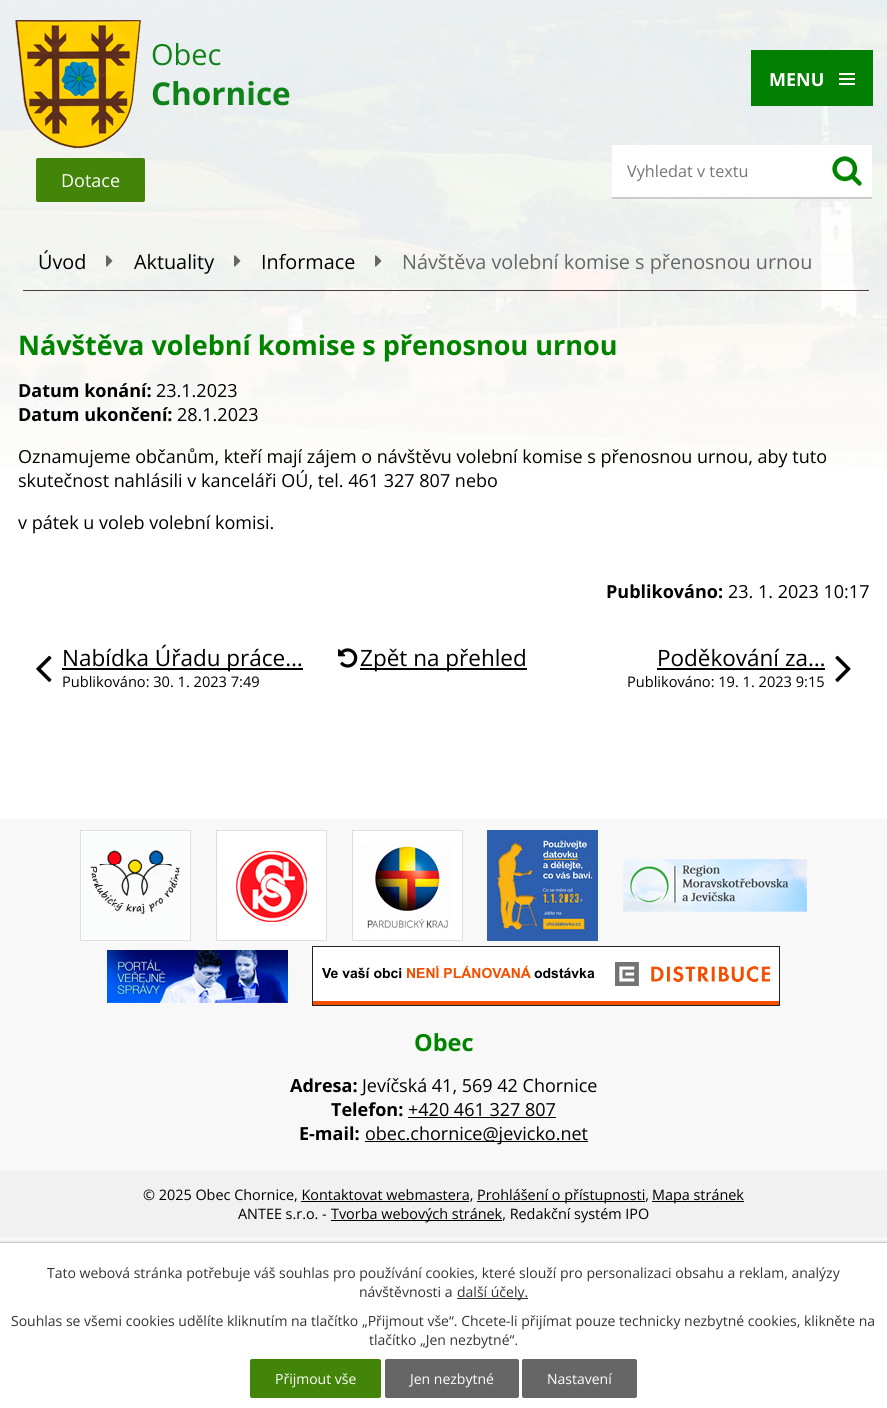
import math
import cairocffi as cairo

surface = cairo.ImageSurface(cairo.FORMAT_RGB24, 887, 1408)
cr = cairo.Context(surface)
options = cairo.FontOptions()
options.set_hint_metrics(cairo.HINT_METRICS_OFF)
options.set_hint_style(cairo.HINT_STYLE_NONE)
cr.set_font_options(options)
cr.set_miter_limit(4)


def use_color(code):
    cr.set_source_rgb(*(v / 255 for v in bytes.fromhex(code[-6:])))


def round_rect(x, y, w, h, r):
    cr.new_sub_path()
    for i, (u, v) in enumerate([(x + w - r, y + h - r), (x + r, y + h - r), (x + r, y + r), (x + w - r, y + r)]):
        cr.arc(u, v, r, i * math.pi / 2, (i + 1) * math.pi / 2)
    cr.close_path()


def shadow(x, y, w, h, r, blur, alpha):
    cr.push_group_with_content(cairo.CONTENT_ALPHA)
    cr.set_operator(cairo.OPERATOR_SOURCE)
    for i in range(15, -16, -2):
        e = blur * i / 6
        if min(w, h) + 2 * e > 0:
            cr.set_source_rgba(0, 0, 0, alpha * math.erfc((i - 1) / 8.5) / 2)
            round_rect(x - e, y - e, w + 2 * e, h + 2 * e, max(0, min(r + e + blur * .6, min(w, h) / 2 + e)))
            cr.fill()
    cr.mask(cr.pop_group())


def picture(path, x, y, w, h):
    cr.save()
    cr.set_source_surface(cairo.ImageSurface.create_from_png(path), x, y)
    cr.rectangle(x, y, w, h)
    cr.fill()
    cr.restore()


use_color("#ffffff")
cr.paint()
picture("img1.png", 0, 0, 887, 470)
picture("img2.png", 15, 20, 126, 129)
cr.select_font_face("Open Sans")
cr.set_font_size(29)
use_color("#10831a")
cr.move_to(151, 65)
cr.show_text("Obec")
cr.select_font_face("Open Sans", cairo.FONT_SLANT_NORMAL, cairo.FONT_WEIGHT_BOLD)
cr.set_font_size(31.5)
cr.move_to(151, 105)
cr.show_text("Chornice")
use_color("#438508")
round_rect(36, 158, 109, 44, 2)
cr.fill()
cr.select_font_face("Open Sans")
cr.set_font_size(18)
use_color("#ffffff")
cr.move_to(61, 187)
cr.show_text("Dotace")
cr.rectangle(612, 145, 260, 52)
cr.fill()
use_color("#cccccc")
cr.rectangle(612, 197, 260, 2)
cr.fill()
cr.set_font_size(16.25)
use_color("#757575")
cr.move_to(627, 177)
cr.show_text("Vyhledat v textu")
picture("img3.png", 832, 156, 30, 30)
use_color("#007f00")
cr.rectangle(751, 50, 122, 56)
cr.fill()
cr.select_font_face("Open Sans", cairo.FONT_SLANT_NORMAL, cairo.FONT_WEIGHT_BOLD)
cr.set_font_size(18)
use_color("#ffffff")
cr.move_to(769, 86)
cr.show_text("MENU")
picture("img4.png", 839, 73, 16, 12)
use_color("#4c3c3c")
cr.rectangle(23, 290, 846, 1)
cr.fill()
cr.select_font_face("Open Sans")
cr.set_font_size(19.8)
use_color("#000000")
cr.move_to(38, 269)
cr.show_text("Úvod")
picture("img5.png", 106, 255, 7, 12)
cr.move_to(134, 269)
cr.show_text("Aktuality")
picture("img6.png", 234, 255, 7, 12)
cr.move_to(261, 269)
cr.show_text("Informace")
picture("img7.png", 375, 255, 7, 12)
use_color("#666666")
cr.move_to(402, 269)
cr.show_text("Návštěva volební komise s přenosnou urnou")
cr.select_font_face("Open Sans", cairo.FONT_SLANT_NORMAL, cairo.FONT_WEIGHT_BOLD)
cr.set_font_size(27)
use_color("#008400")
cr.move_to(18, 355)
cr.show_text("Návštěva volební komise s přenosnou urnou")
cr.set_font_size(18)
use_color("#000000")
cr.move_to(18, 397)
cr.show_text("Datum konání:")
cr.select_font_face("Open Sans")
cr.move_to(156, 397)
cr.show_text("23.1.2023")
cr.select_font_face("Open Sans", cairo.FONT_SLANT_NORMAL, cairo.FONT_WEIGHT_BOLD)
cr.move_to(18, 421)
cr.show_text("Datum ukončení:")
cr.select_font_face("Open Sans")
cr.move_to(177, 421)
cr.show_text("28.1.2023")
cr.move_to(18, 463)
cr.show_text("Oznamujeme občanům, kteří mají zájem o návštěvu volební komise s přenosnou urnou, aby tuto")
cr.move_to(18, 487)
cr.show_text("skutečnost nahlásili v kanceláři OÚ, tel. 461 327 807 nebo")
cr.move_to(18, 529)
cr.show_text("v pátek u voleb volební komisi.")
cr.select_font_face("Open Sans", cairo.FONT_SLANT_NORMAL, cairo.FONT_WEIGHT_BOLD)
cr.move_to(606, 598)
cr.show_text("Publikováno:")
cr.select_font_face("Open Sans")
cr.move_to(728, 598)
cr.show_text("23. 1. 2023 10:17")
picture("img8.png", 36, 655, 16, 27)
cr.rectangle(62, 668, 241, 2)
cr.fill()
cr.set_font_size(22.5)
cr.move_to(62, 666)
cr.show_text("Nabídka Úřadu práce…")
cr.set_font_size(14.6)
cr.move_to(62, 687)
cr.show_text("Publikováno: 30. 1. 2023 7:49")
picture("img9.png", 338, 648, 20, 20)
cr.rectangle(360, 668, 167, 2)
cr.fill()
cr.set_font_size(22.5)
cr.move_to(360, 666)
cr.show_text("Zpět na přehled")
cr.move_to(657, 666)
cr.show_text("Poděkování za…")
cr.rectangle(657, 668, 168, 2)
cr.fill()
cr.set_font_size(14.6)
cr.move_to(627, 687)
cr.show_text("Publikováno: 19. 1. 2023 9:15")
picture("img10.png", 835, 655, 16, 27)
use_color("#f8f8f8")
cr.rectangle(0, 819, 887, 351)
cr.fill()
picture("img11.png", 80, 830, 111, 111)
picture("img12.png", 216, 830, 111, 111)
picture("img13.png", 352, 830, 111, 111)
picture("img14.png", 487, 830, 111, 111)
picture("img15.png", 623, 859, 184, 53)
picture("img16.png", 107, 950, 181, 53)
picture("img17.png", 312, 946, 468, 60)
cr.select_font_face("Open Sans", cairo.FONT_SLANT_NORMAL, cairo.FONT_WEIGHT_BOLD)
cr.set_font_size(23.5)
use_color("#008400")
cr.move_to(414, 1051)
cr.show_text("Obec")
cr.set_font_size(18)
use_color("#000000")
cr.move_to(290, 1092)
cr.show_text("Adresa:")
cr.select_font_face("Open Sans")
cr.move_to(362, 1092)
cr.show_text("Jevíčská 41, 569 42 Chornice")
cr.select_font_face("Open Sans", cairo.FONT_SLANT_NORMAL, cairo.FONT_WEIGHT_BOLD)
cr.move_to(331, 1116)
cr.show_text("Telefon:")
cr.select_font_face("Open Sans")
cr.move_to(408, 1116)
cr.show_text("+420 461 327 807")
cr.rectangle(408, 1117, 148, 1)
cr.fill()
cr.select_font_face("Open Sans", cairo.FONT_SLANT_NORMAL, cairo.FONT_WEIGHT_BOLD)
cr.move_to(299, 1140)
cr.show_text("E-mail:")
cr.rectangle(365, 1141, 223, 1)
cr.fill()
cr.select_font_face("Open Sans")
cr.move_to(365, 1140)
cr.show_text("obec.chornice@jevicko.net")
use_color("#f0f1f0")
cr.rectangle(0, 1170, 887, 68)
cr.fill()
cr.set_font_size(14.4)
use_color("#000000")
cr.move_to(143, 1200)
cr.show_text("© 2025 Obec Chornice, Kontaktovat webmastera,")
cr.rectangle(477, 1201, 168, 1)
cr.fill()
cr.move_to(477, 1200)
cr.show_text("Prohlášení o přístupnosti,")
cr.rectangle(652, 1201, 92, 1)
cr.fill()
cr.move_to(652, 1200)
cr.show_text("Mapa stránek")
cr.rectangle(301, 1201, 168, 1)
cr.fill()
cr.move_to(238, 1219)
cr.show_text("ANTEE s.r.o. -")
cr.rectangle(331, 1220, 171, 1)
cr.fill()
cr.move_to(331, 1219)
cr.show_text("Tvorba webových stránek, Redakční systém IPO")
use_color("#000000")
shadow(0, 1242, 887, 166, 0, 2.5, 0.2)
use_color("#ffffff")
cr.rectangle(0, 1243, 887, 165)
cr.fill()
use_color("#cccccc")
cr.rectangle(0, 1242, 887, 1)
cr.fill()
cr.set_font_size(14)
use_color("#333333")
cr.move_to(47, 1278)
cr.show_text("Tato webová stránka potřebuje váš souhlas pro používání cookies, které slouží pro personalizaci obsahu a reklam, analýzy")
cr.move_to(359, 1297)
cr.show_text("návštěvnosti a")
cr.rectangle(457, 1298, 71, 1)
cr.fill()
cr.move_to(457, 1297)
cr.show_text("další účely.")
cr.move_to(11, 1326)
cr.show_text("Souhlas se všemi cookies udělíte kliknutím na tlačítko „Přijmout vše“. Chcete-li přijímat pouze technicky nezbytné cookies, klikněte na")
cr.move_to(369, 1345)
cr.show_text("tlačítko „Jen nezbytné“.")
use_color("#438508")
round_rect(250, 1359, 131, 39, 2)
cr.fill()
use_color("#ffffff")
cr.move_to(275, 1384)
cr.show_text("Přijmout vše")
use_color("#666666")
round_rect(385, 1359, 134, 39, 2)
cr.fill()
use_color("#ffffff")
cr.move_to(410, 1384)
cr.show_text("Jen nezbytné")
use_color("#666666")
round_rect(522, 1359, 115, 39, 2)
cr.fill()
use_color("#ffffff")
cr.move_to(547, 1384)
cr.show_text("Nastavení")
surface.write_to_png("result.png")
